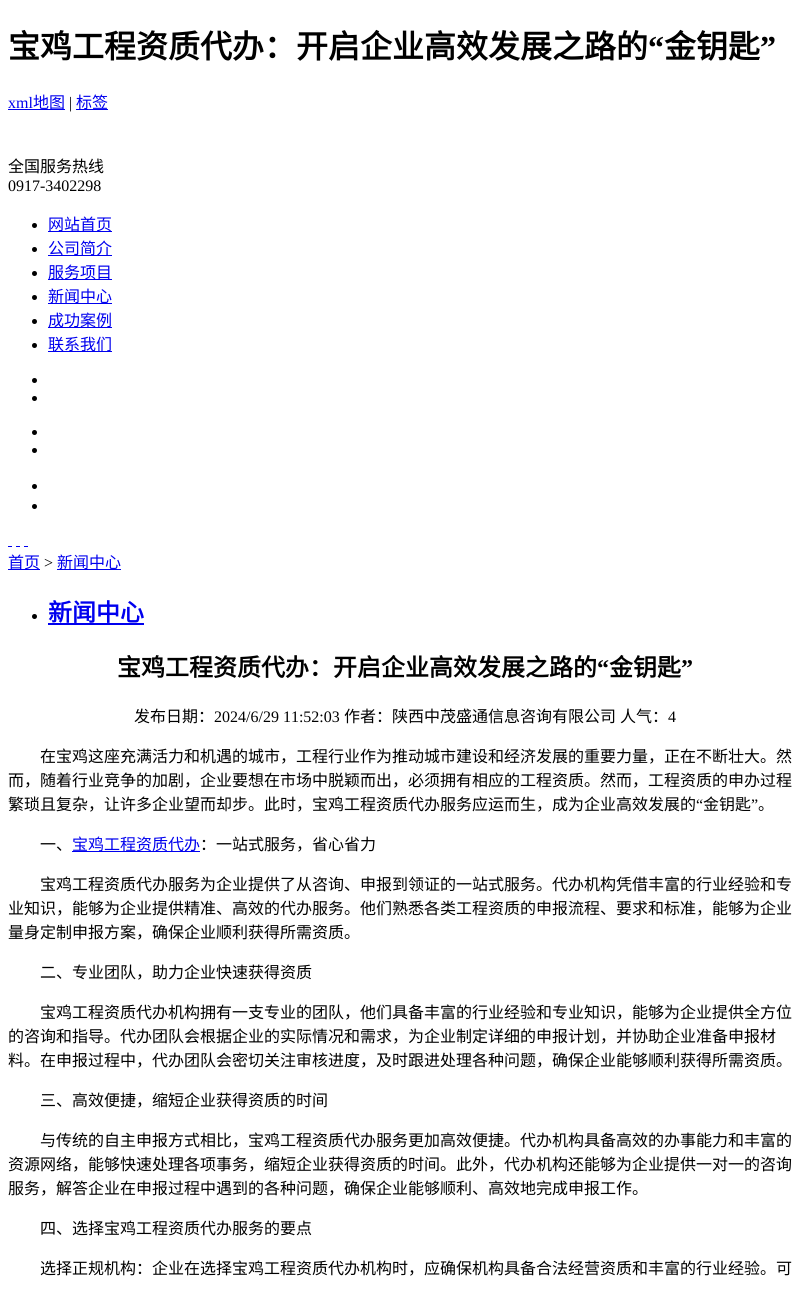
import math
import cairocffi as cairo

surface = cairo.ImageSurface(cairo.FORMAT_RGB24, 810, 1291)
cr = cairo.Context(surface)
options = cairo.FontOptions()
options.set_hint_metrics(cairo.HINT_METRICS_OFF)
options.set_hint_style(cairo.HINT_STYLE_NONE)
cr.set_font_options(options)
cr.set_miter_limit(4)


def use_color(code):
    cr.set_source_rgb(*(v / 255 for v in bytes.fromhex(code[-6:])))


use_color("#ffffff")
cr.paint()
cr.select_font_face("Noto Sans CJK SC", cairo.FONT_SLANT_NORMAL, cairo.FONT_WEIGHT_BOLD)
cr.set_font_size(32)
use_color("#000000")
cr.move_to(8, 58)
cr.show_text("宝鸡工程资质代办：开启企业高效发展之路的")
cr.select_font_face("Liberation Serif", cairo.FONT_SLANT_NORMAL, cairo.FONT_WEIGHT_BOLD)
cr.move_to(648, 58)
cr.show_text("“")
cr.select_font_face("Noto Sans CJK SC", cairo.FONT_SLANT_NORMAL, cairo.FONT_WEIGHT_BOLD)
cr.move_to(664, 58)
cr.show_text("金钥匙")
cr.select_font_face("Liberation Serif", cairo.FONT_SLANT_NORMAL, cairo.FONT_WEIGHT_BOLD)
cr.move_to(760, 58)
cr.show_text("”")
cr.select_font_face("Liberation Serif")
cr.set_font_size(16)
use_color("#0000ee")
cr.move_to(8, 108)
cr.show_text("xml")
cr.rectangle(8, 109, 57, 1)
cr.fill()
cr.select_font_face("Noto Sans CJK SC")
cr.move_to(33, 108)
cr.show_text("地图")
cr.select_font_face("Liberation Serif")
use_color("#000000")
cr.move_to(69, 108)
cr.show_text("|")
use_color("#0000ee")
cr.rectangle(76, 109, 32, 1)
cr.fill()
cr.select_font_face("Noto Sans CJK SC")
cr.move_to(76, 108)
cr.show_text("标签")
use_color("#000000")
cr.move_to(8, 172)
cr.show_text("全国服务热线")
cr.select_font_face("Liberation Serif")
cr.move_to(8, 191)
cr.show_text("0917-3402298")
cr.new_path()
cr.arc(34.5, 225.5, 2.5, 0, 2 * math.pi)
cr.fill()
use_color("#0000ee")
cr.rectangle(48, 231, 64, 1)
cr.fill()
cr.select_font_face("Noto Sans CJK SC")
cr.move_to(48, 230)
cr.show_text("网站首页")
use_color("#000000")
cr.new_path()
cr.arc(34.5, 249.5, 2.5, 0, 2 * math.pi)
cr.fill()
use_color("#0000ee")
cr.rectangle(48, 255, 64, 1)
cr.fill()
cr.move_to(48, 254)
cr.show_text("公司简介")
use_color("#000000")
cr.new_path()
cr.arc(34.5, 273.5, 2.5, 0, 2 * math.pi)
cr.fill()
use_color("#0000ee")
cr.rectangle(48, 279, 64, 1)
cr.fill()
cr.move_to(48, 278)
cr.show_text("服务项目")
use_color("#000000")
cr.new_path()
cr.arc(34.5, 297.5, 2.5, 0, 2 * math.pi)
cr.fill()
use_color("#0000ee")
cr.rectangle(48, 303, 64, 1)
cr.fill()
cr.move_to(48, 302)
cr.show_text("新闻中心")
use_color("#000000")
cr.new_path()
cr.arc(34.5, 321.5, 2.5, 0, 2 * math.pi)
cr.fill()
use_color("#0000ee")
cr.rectangle(48, 327, 64, 1)
cr.fill()
cr.move_to(48, 326)
cr.show_text("成功案例")
use_color("#000000")
cr.new_path()
cr.arc(34.5, 345.5, 2.5, 0, 2 * math.pi)
cr.fill()
use_color("#0000ee")
cr.rectangle(48, 351, 64, 1)
cr.fill()
cr.move_to(48, 350)
cr.show_text("联系我们")
use_color("#000000")
cr.new_path()
cr.arc(34.5, 380.5, 2.5, 0, 2 * math.pi)
cr.fill()
cr.arc(34.5, 398.5, 2.5, 0, 2 * math.pi)
cr.fill()
cr.arc(34.5, 432.5, 2.5, 0, 2 * math.pi)
cr.fill()
cr.arc(34.5, 450.5, 2.5, 0, 2 * math.pi)
cr.fill()
cr.arc(34.5, 486.5, 2.5, 0, 2 * math.pi)
cr.fill()
cr.arc(34.5, 506.5, 2.5, 0, 2 * math.pi)
cr.fill()
use_color("#0000ee")
cr.rectangle(8, 546, 4, 1)
cr.fill()
cr.rectangle(16, 546, 4, 1)
cr.fill()
cr.rectangle(24, 546, 4, 1)
cr.fill()
cr.rectangle(8, 569, 32, 1)
cr.fill()
cr.move_to(8, 568)
cr.show_text("首页")
cr.select_font_face("Liberation Serif")
use_color("#000000")
cr.move_to(44, 568)
cr.show_text(">")
use_color("#0000ee")
cr.rectangle(57, 569, 64, 1)
cr.fill()
cr.select_font_face("Noto Sans CJK SC")
cr.move_to(57, 568)
cr.show_text("新闻中心")
use_color("#000000")
cr.new_path()
cr.arc(34.5, 616.5, 2.5, 0, 2 * math.pi)
cr.fill()
cr.select_font_face("Noto Sans CJK SC", cairo.FONT_SLANT_NORMAL, cairo.FONT_WEIGHT_BOLD)
cr.set_font_size(24)
use_color("#0000ee")
cr.move_to(48, 621)
cr.show_text("新闻中心")
cr.rectangle(48, 623, 96, 2)
cr.fill()
use_color("#000000")
cr.move_to(117, 676)
cr.show_text("宝鸡工程资质代办：开启企业高效发展之路的")
cr.select_font_face("Liberation Serif", cairo.FONT_SLANT_NORMAL, cairo.FONT_WEIGHT_BOLD)
cr.move_to(597, 676)
cr.show_text("“")
cr.select_font_face("Noto Sans CJK SC", cairo.FONT_SLANT_NORMAL, cairo.FONT_WEIGHT_BOLD)
cr.move_to(609, 676)
cr.show_text("金钥匙")
cr.select_font_face("Liberation Serif", cairo.FONT_SLANT_NORMAL, cairo.FONT_WEIGHT_BOLD)
cr.move_to(681, 676)
cr.show_text("”")
cr.select_font_face("Noto Sans CJK SC")
cr.set_font_size(16)
cr.move_to(134, 722)
cr.show_text("发布日期：")
cr.select_font_face("Liberation Serif")
cr.move_to(214, 722)
cr.show_text("2024/6/29 11:52:03")
cr.select_font_face("Noto Sans CJK SC")
cr.move_to(344, 722)
cr.show_text("作者：陕西中茂盛通信息咨询有限公司")
cr.move_to(620, 722)
cr.show_text("人气：")
cr.select_font_face("Liberation Serif")
cr.move_to(668, 722)
cr.show_text("4")
cr.select_font_face("Noto Sans CJK SC")
cr.move_to(40, 762)
cr.show_text("在宝鸡这座充满活力和机遇的城市，工程行业作为推动城市建设和经济发展的重要力量，正在不断壮大。然")
cr.move_to(8, 786)
cr.show_text("而，随着行业竞争的加剧，企业要想在市场中脱颖而出，必须拥有相应的工程资质。然而，工程资质的申办过程")
cr.move_to(8, 810)
cr.show_text("繁琐且复杂，让许多企业望而却步。此时，宝鸡工程资质代办服务应运而生，成为企业高效发展的")
cr.select_font_face("Liberation Serif")
cr.move_to(696, 810)
cr.show_text("“")
cr.select_font_face("Noto Sans CJK SC")
cr.move_to(703, 810)
cr.show_text("金钥匙")
cr.select_font_face("Liberation Serif")
cr.move_to(751, 810)
cr.show_text("”")
cr.select_font_face("Noto Sans CJK SC")
cr.move_to(758, 810)
cr.show_text("。")
cr.move_to(40, 850)
cr.show_text("一、")
use_color("#0000ee")
cr.rectangle(72, 851, 128, 1)
cr.fill()
cr.move_to(72, 850)
cr.show_text("宝鸡工程资质代办")
use_color("#000000")
cr.move_to(200, 850)
cr.show_text("：一站式服务，省心省力")
cr.move_to(40, 890)
cr.show_text("宝鸡工程资质代办服务为企业提供了从咨询、申报到领证的一站式服务。代办机构凭借丰富的行业经验和专")
cr.move_to(8, 914)
cr.show_text("业知识，能够为企业提供精准、高效的代办服务。他们熟悉各类工程资质的申报流程、要求和标准，能够为企业")
cr.move_to(8, 938)
cr.show_text("量身定制申报方案，确保企业顺利获得所需资质。")
cr.move_to(40, 978)
cr.show_text("二、专业团队，助力企业快速获得资质")
cr.move_to(40, 1018)
cr.show_text("宝鸡工程资质代办机构拥有一支专业的团队，他们具备丰富的行业经验和专业知识，能够为企业提供全方位")
cr.move_to(8, 1042)
cr.show_text("的咨询和指导。代办团队会根据企业的实际情况和需求，为企业制定详细的申报计划，并协助企业准备申报材")
cr.move_to(8, 1066)
cr.show_text("料。在申报过程中，代办团队会密切关注审核进度，及时跟进处理各种问题，确保企业能够顺利获得所需资质。")
cr.move_to(40, 1106)
cr.show_text("三、高效便捷，缩短企业获得资质的时间")
cr.move_to(40, 1146)
cr.show_text("与传统的自主申报方式相比，宝鸡工程资质代办服务更加高效便捷。代办机构具备高效的办事能力和丰富的")
cr.move_to(8, 1170)
cr.show_text("资源网络，能够快速处理各项事务，缩短企业获得资质的时间。此外，代办机构还能够为企业提供一对一的咨询")
cr.move_to(8, 1194)
cr.show_text("服务，解答企业在申报过程中遇到的各种问题，确保企业能够顺利、高效地完成申报工作。")
cr.move_to(40, 1234)
cr.show_text("四、选择宝鸡工程资质代办服务的要点")
cr.move_to(40, 1274)
cr.show_text("选择正规机构：企业在选择宝鸡工程资质代办机构时，应确保机构具备合法经营资质和丰富的行业经验。可")
surface.write_to_png("result.png")
